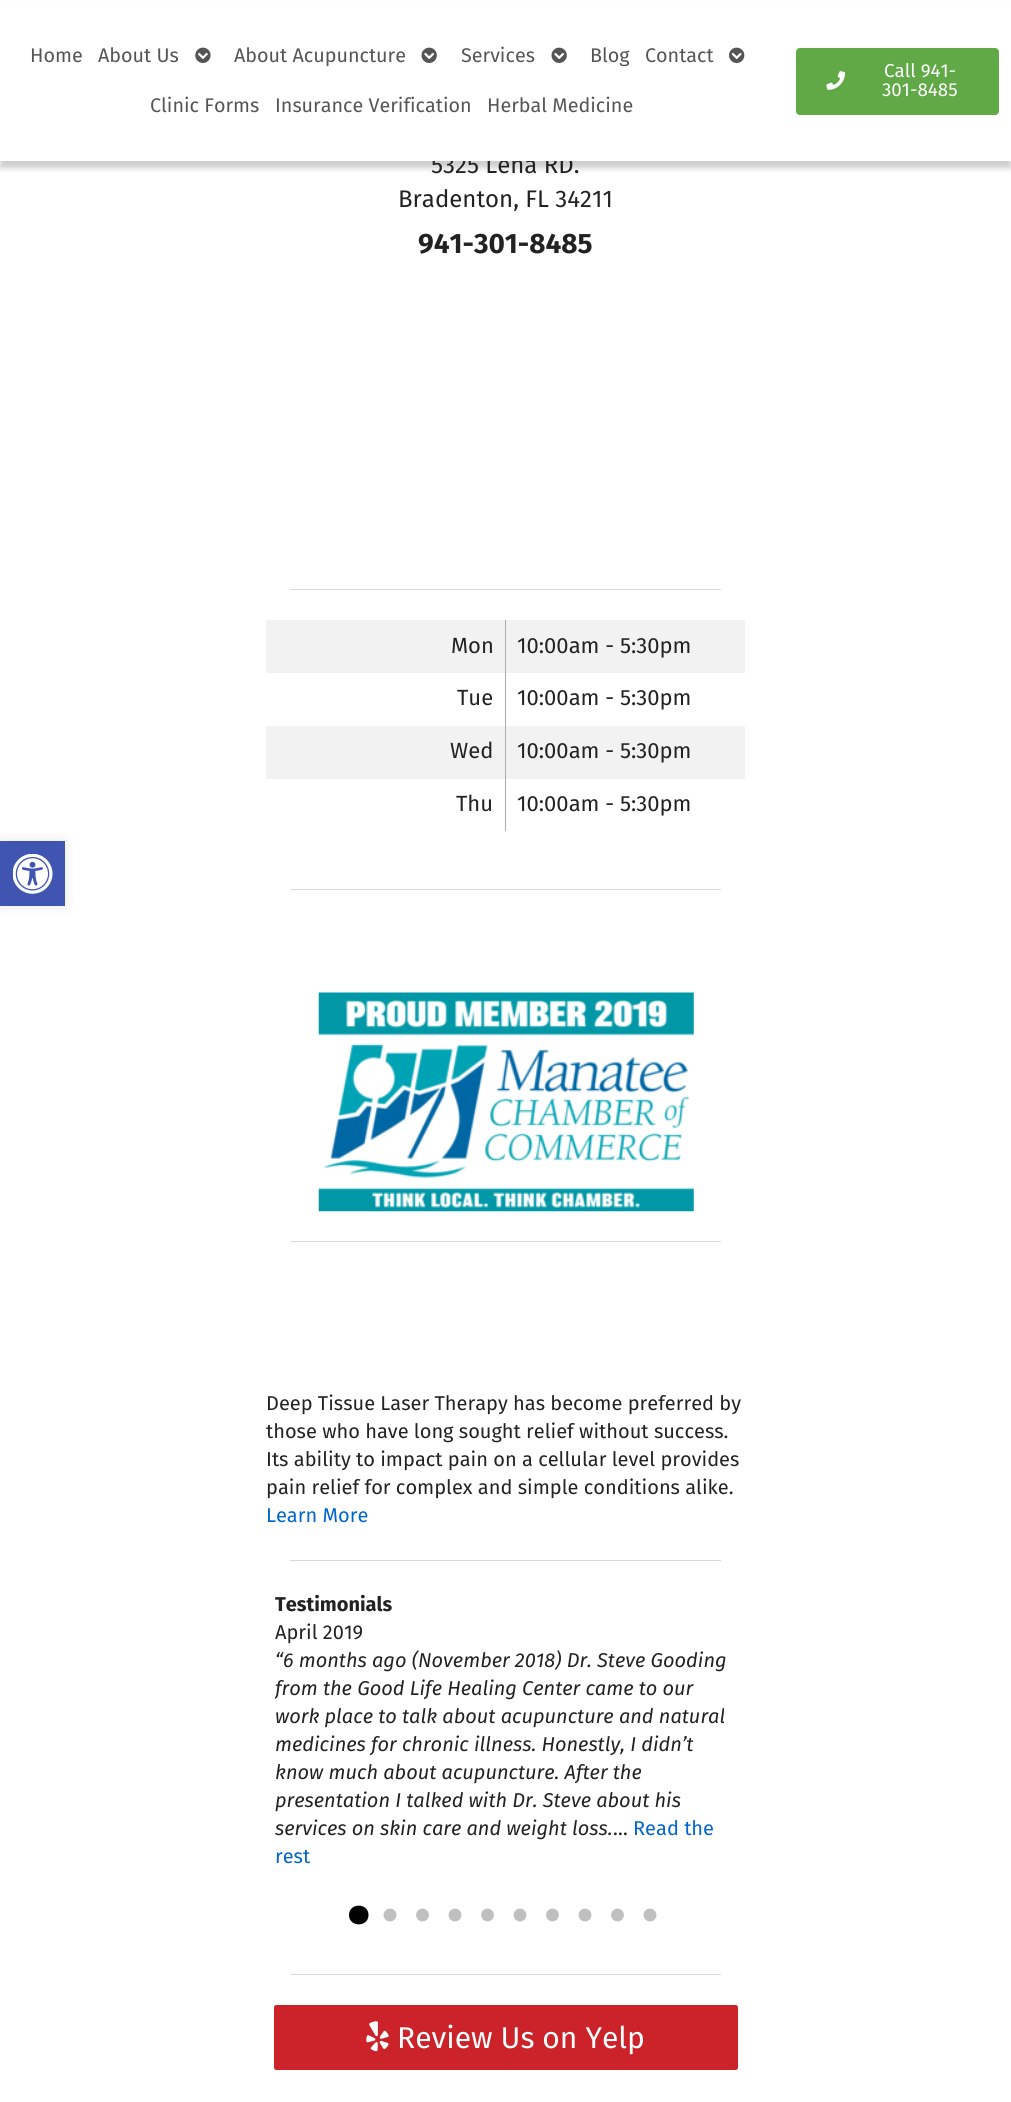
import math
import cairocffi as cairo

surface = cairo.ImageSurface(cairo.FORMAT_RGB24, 1011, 2102)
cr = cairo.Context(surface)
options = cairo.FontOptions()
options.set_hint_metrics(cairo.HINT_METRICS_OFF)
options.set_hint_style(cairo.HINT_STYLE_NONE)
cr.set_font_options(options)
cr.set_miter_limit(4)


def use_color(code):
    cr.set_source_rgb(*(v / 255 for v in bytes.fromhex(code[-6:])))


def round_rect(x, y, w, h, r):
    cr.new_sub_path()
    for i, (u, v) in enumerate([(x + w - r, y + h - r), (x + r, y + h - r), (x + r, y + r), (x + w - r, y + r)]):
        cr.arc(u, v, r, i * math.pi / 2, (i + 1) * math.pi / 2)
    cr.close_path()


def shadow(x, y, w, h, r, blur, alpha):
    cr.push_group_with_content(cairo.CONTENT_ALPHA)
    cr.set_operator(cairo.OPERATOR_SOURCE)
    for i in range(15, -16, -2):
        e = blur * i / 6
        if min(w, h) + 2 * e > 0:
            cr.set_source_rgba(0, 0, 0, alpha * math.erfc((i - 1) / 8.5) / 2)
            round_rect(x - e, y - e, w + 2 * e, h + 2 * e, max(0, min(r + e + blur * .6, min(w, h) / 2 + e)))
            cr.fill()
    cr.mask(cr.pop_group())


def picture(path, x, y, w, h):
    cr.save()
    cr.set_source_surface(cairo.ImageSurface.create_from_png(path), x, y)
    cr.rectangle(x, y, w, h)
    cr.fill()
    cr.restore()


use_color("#ffffff")
cr.paint()
use_color("#000000")
shadow(0, 6, 1011, 162, 0, 3, 0.2)
cr.select_font_face("Fira Sans")
cr.set_font_size(24)
use_color("#222222")
cr.move_to(431, 173)
cr.show_text("5325 Lena RD.")
use_color("#ffffff")
cr.rectangle(0, 1, 1011, 160)
cr.fill()
cr.set_font_size(19.75)
use_color("#555555")
cr.move_to(30, 62)
cr.show_text("Home")
cr.move_to(98, 62)
cr.show_text("About Us")
picture("img1.png", 195, 47, 16, 16)
cr.move_to(234, 62)
cr.show_text("About Acupuncture")
picture("img2.png", 421, 47, 16, 16)
cr.move_to(461, 62)
cr.show_text("Services")
picture("img2.png", 551, 47, 16, 16)
cr.move_to(590, 62)
cr.show_text("Blog")
cr.move_to(645, 62)
cr.show_text("Contact")
picture("img3.png", 729, 47, 16, 16)
cr.move_to(150, 112)
cr.show_text("Clinic Forms")
cr.move_to(275, 112)
cr.show_text("Insurance Verification")
cr.move_to(487, 112)
cr.show_text("Herbal Medicine")
use_color("#61a946")
round_rect(796, 48, 203, 67, 4)
cr.fill()
picture("img4.png", 826, 71, 19, 19)
cr.set_font_size(18.75)
use_color("#ffffff")
cr.move_to(884, 77)
cr.show_text("Call 941-")
cr.move_to(882, 96)
cr.show_text("301-8485")
cr.set_font_size(24)
use_color("#222222")
cr.move_to(398, 207)
cr.show_text("Bradenton, FL 34211")
cr.select_font_face("Fira Sans", cairo.FONT_SLANT_NORMAL, cairo.FONT_WEIGHT_BOLD)
cr.set_font_size(28)
cr.move_to(418, 253)
cr.show_text("941-301-8485")
use_color("#d9d9d9")
cr.rectangle(290, 589, 431, 1)
cr.fill()
use_color("#f2f2f2")
cr.rectangle(266, 620, 479, 53)
cr.fill()
cr.rectangle(266, 726, 479, 53)
cr.fill()
use_color("#aaaaaa")
cr.rectangle(505, 620, 1, 211)
cr.fill()
cr.select_font_face("Fira Sans")
cr.set_font_size(22)
use_color("#222222")
cr.move_to(451, 653)
cr.show_text("Mon")
cr.move_to(517, 653)
cr.show_text("10:00am - 5:30pm")
cr.move_to(457, 705)
cr.show_text("Tue")
cr.move_to(517, 705)
cr.show_text("10:00am - 5:30pm")
cr.move_to(450, 758)
cr.show_text("Wed")
cr.move_to(517, 758)
cr.show_text("10:00am - 5:30pm")
cr.move_to(456, 811)
cr.show_text("Thu")
cr.move_to(517, 811)
cr.show_text("10:00am - 5:30pm")
use_color("#d9d9d9")
cr.rectangle(290, 889, 431, 1)
cr.fill()
picture("img5.png", 318, 992, 376, 220)
cr.rectangle(290, 1241, 431, 1)
cr.fill()
cr.set_font_size(20)
use_color("#222222")
cr.move_to(266, 1410)
cr.show_text("Deep Tissue Laser Therapy has become preferred by")
cr.move_to(266, 1438)
cr.show_text("those who have long sought relief without success.")
cr.move_to(266, 1466)
cr.show_text("Its ability to impact pain on a cellular level provides")
cr.move_to(266, 1494)
cr.show_text("pain relief for complex and simple conditions alike.")
use_color("#0066cc")
cr.move_to(266, 1522)
cr.show_text("Learn More")
use_color("#d9d9d9")
cr.rectangle(290, 1560, 431, 1)
cr.fill()
cr.select_font_face("Fira Sans", cairo.FONT_SLANT_NORMAL, cairo.FONT_WEIGHT_BOLD)
use_color("#222222")
cr.move_to(275, 1611)
cr.show_text("Testimonials")
cr.select_font_face("Fira Sans")
cr.move_to(275, 1639)
cr.show_text("April 2019")
cr.select_font_face("Fira Sans", cairo.FONT_SLANT_ITALIC)
cr.move_to(275, 1667)
cr.show_text("“6 months ago (November 2018) Dr. Steve Gooding")
cr.save()
cr.rectangle(275, 1619, 461, 252)
cr.clip()
cr.move_to(275, 1695)
cr.show_text("from the Good Life Healing Center came to our")
cr.restore()
cr.move_to(275, 1723)
cr.show_text("work place to talk about acupuncture and natural")
cr.move_to(275, 1751)
cr.show_text("medicines for chronic illness. Honestly, I didn’t")
cr.move_to(275, 1779)
cr.show_text("know much about acupuncture. After the")
cr.move_to(275, 1807)
cr.show_text("presentation I talked with Dr. Steve about his")
cr.move_to(275, 1835)
cr.show_text("services on skin care and weight loss.")
cr.select_font_face("Fira Sans")
cr.move_to(613, 1835)
cr.show_text("…")
use_color("#0066cc")
cr.move_to(633, 1835)
cr.show_text("Read the")
cr.move_to(275, 1863)
cr.show_text("rest")
use_color("#000000")
cr.new_path()
cr.move_to(368.5, 1915)
cr.curve_to(368.5, 1902.5, 349, 1902.5, 349, 1915)
cr.curve_to(349, 1927.5, 368.5, 1927.5, 368.5, 1915)
cr.close_path()
cr.fill()
picture("img6.png", 383, 1908, 14, 14)
picture("img7.png", 416, 1908, 13, 14)
picture("img6.png", 448, 1908, 14, 14)
picture("img7.png", 481, 1908, 13, 14)
picture("img6.png", 513, 1908, 14, 14)
picture("img7.png", 546, 1908, 13, 14)
picture("img6.png", 578, 1908, 14, 14)
picture("img7.png", 611, 1908, 13, 14)
picture("img6.png", 643, 1908, 14, 14)
use_color("#d9d9d9")
cr.rectangle(290, 1974, 431, 1)
cr.fill()
use_color("#cb2329")
round_rect(274, 2005, 464, 65, 2.5)
cr.fill()
picture("img8.png", 366, 2021, 23, 31)
cr.set_font_size(30)
use_color("#ffffff")
cr.move_to(397, 2048)
cr.show_text("Review Us on Yelp")
use_color("#000000")
shadow(0, 841, 65, 65, 0, 6, 0.1)
use_color("#4054b2")
cr.rectangle(0, 841, 65, 65)
cr.fill()
picture("img9.png", 13, 854, 40, 40)
surface.write_to_png("result.png")
